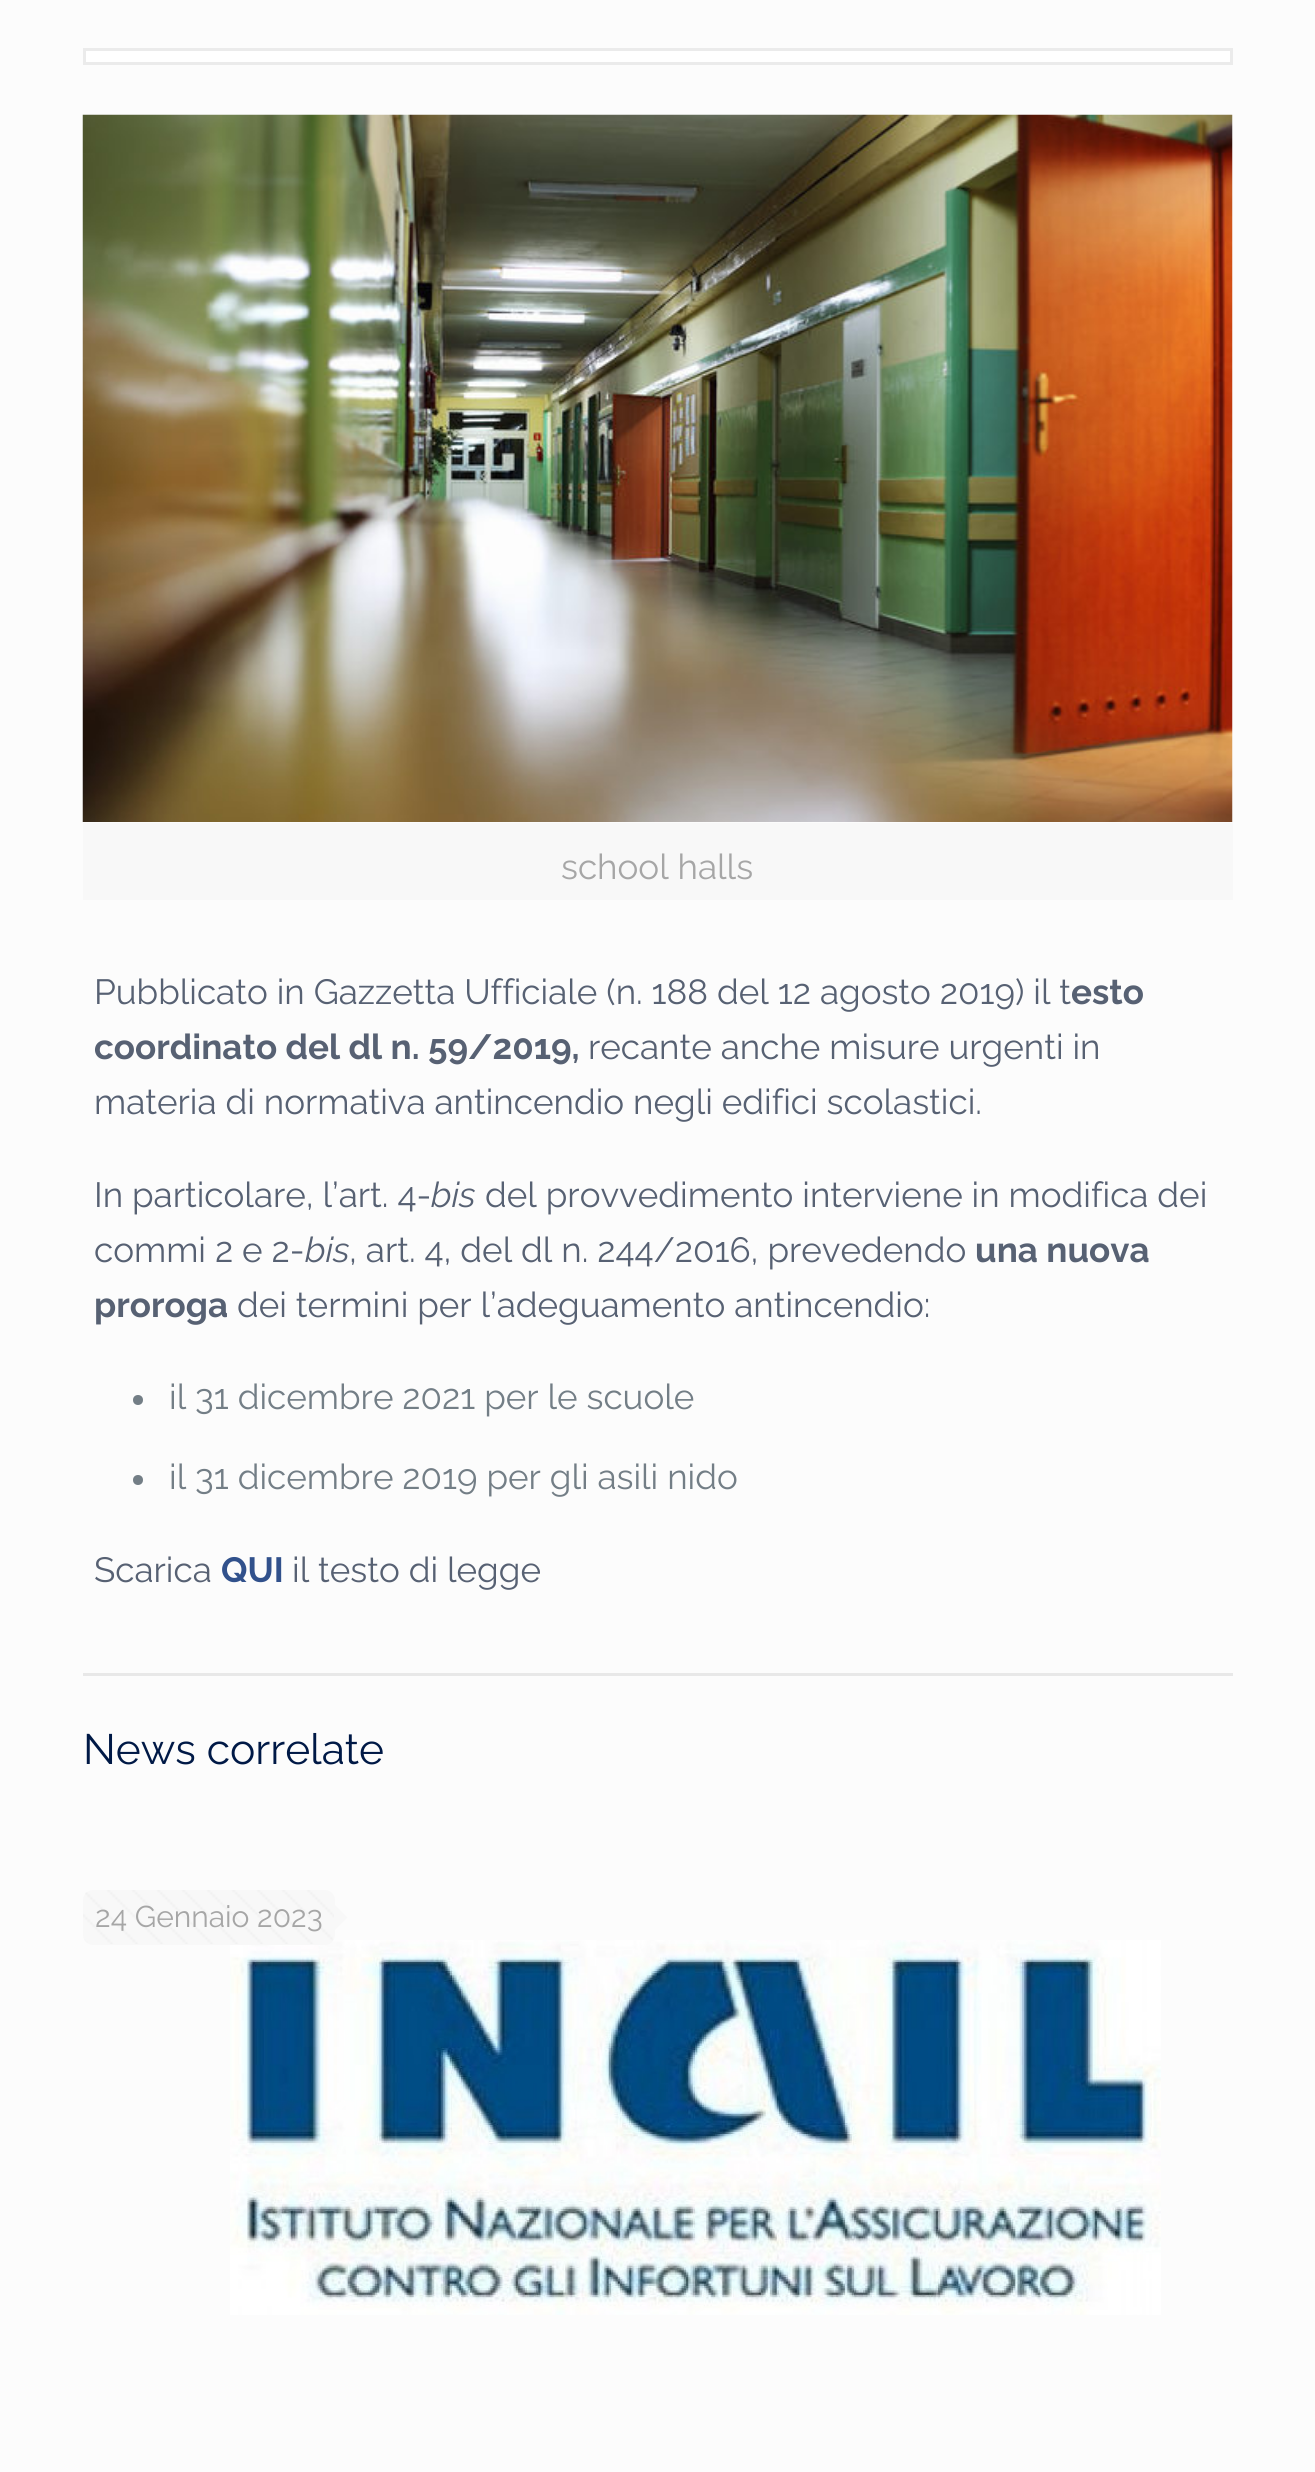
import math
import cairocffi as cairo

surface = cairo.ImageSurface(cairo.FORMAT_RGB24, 1315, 2472)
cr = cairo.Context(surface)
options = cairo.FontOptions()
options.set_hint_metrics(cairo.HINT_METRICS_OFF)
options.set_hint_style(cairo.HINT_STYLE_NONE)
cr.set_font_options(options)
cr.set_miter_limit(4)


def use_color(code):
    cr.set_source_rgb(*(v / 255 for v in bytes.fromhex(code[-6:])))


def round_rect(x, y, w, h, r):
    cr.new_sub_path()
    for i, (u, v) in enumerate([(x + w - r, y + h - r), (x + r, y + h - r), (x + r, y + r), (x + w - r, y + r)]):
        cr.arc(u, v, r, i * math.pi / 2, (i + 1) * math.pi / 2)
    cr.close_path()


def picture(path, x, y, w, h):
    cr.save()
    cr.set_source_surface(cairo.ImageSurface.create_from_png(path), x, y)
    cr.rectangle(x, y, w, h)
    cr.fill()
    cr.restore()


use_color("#fcfcfc")
cr.paint()
use_color("#ffffff")
cr.rectangle(84.5, 49.5, 1147, 14)
cr.fill_preserve()
use_color("#ebebeb")
cr.set_line_width(3)
cr.stroke()
picture("img1.png", 82, 114, 1151, 708)
use_color("#f8f8f8")
cr.rectangle(83, 823, 1150, 77)
cr.fill()
cr.select_font_face("Raleway")
cr.set_font_size(35)
use_color("#a6a6a6")
cr.move_to(561, 879)
cr.show_text("school halls")
use_color("#576173")
cr.move_to(94, 1004)
cr.show_text("Pubblicato in Gazzetta Ufficiale (n. 188 del 12 agosto 2019) il t")
cr.select_font_face("Raleway", cairo.FONT_SLANT_NORMAL, cairo.FONT_WEIGHT_BOLD)
cr.move_to(1071, 1004)
cr.show_text("esto")
cr.move_to(94, 1059)
cr.show_text("coordinato del dl n. 59/2019,")
cr.select_font_face("Raleway")
cr.move_to(588, 1059)
cr.show_text("recante anche misure urgenti in")
cr.move_to(94, 1114)
cr.show_text("materia di normativa antincendio negli edifici scolastici.")
cr.move_to(94, 1207)
cr.show_text("In particolare, l’art. 4-")
cr.select_font_face("Raleway", cairo.FONT_SLANT_ITALIC)
cr.move_to(431, 1207)
cr.show_text("bis")
cr.select_font_face("Raleway")
cr.move_to(485, 1207)
cr.show_text("del provvedimento interviene in modifica dei")
cr.move_to(94, 1262)
cr.show_text("commi 2 e 2-")
cr.select_font_face("Raleway", cairo.FONT_SLANT_ITALIC)
cr.move_to(305, 1262)
cr.show_text("bis")
cr.select_font_face("Raleway")
cr.move_to(349, 1262)
cr.show_text(", art. 4, del dl n. 244/2016, prevedendo")
cr.select_font_face("Raleway", cairo.FONT_SLANT_NORMAL, cairo.FONT_WEIGHT_BOLD)
cr.move_to(975, 1262)
cr.show_text("una nuova")
cr.move_to(94, 1317)
cr.show_text("proroga")
cr.select_font_face("Raleway")
cr.move_to(237, 1317)
cr.show_text("dei termini per l’adeguamento antincendio:")
use_color("#737e86")
cr.new_path()
cr.arc(138, 1400, 5, 0, 2 * math.pi)
cr.fill()
cr.move_to(169, 1409)
cr.show_text("il 31 dicembre 2021 per le scuole")
cr.new_path()
cr.arc(138, 1480, 5, 0, 2 * math.pi)
cr.fill()
cr.move_to(169, 1489)
cr.show_text("il 31 dicembre 2019 per gli asili nido")
use_color("#576173")
cr.move_to(94, 1582)
cr.show_text("Scarica")
cr.select_font_face("Raleway", cairo.FONT_SLANT_NORMAL, cairo.FONT_WEIGHT_BOLD)
use_color("#31518c")
cr.move_to(221, 1582)
cr.show_text("QUI")
cr.select_font_face("Raleway")
use_color("#576173")
cr.move_to(292, 1582)
cr.show_text("il testo di legge")
use_color("#e8e8e8")
cr.rectangle(83, 1673, 1150, 3)
cr.fill()
cr.set_font_size(42.5)
use_color("#001946")
cr.move_to(83, 1764)
cr.show_text("News correlate")
picture("img3.png", 230, 1940, 931, 375)
use_color("#f8f8f8")
round_rect(83, 1890, 252, 55, 10)
cr.fill()
picture("img2.png", 83, 1890, 251, 54)
cr.set_font_size(30)
use_color("#a6a6a6")
cr.move_to(95, 1927)
cr.show_text("24 Gennaio 2023")
use_color("#f8f8f8")
cr.new_path()
cr.move_to(335, 1930)
cr.line_to(335, 1905)
cr.line_to(347.5, 1917.5)
cr.close_path()
cr.fill()
surface.write_to_png("result.png")
